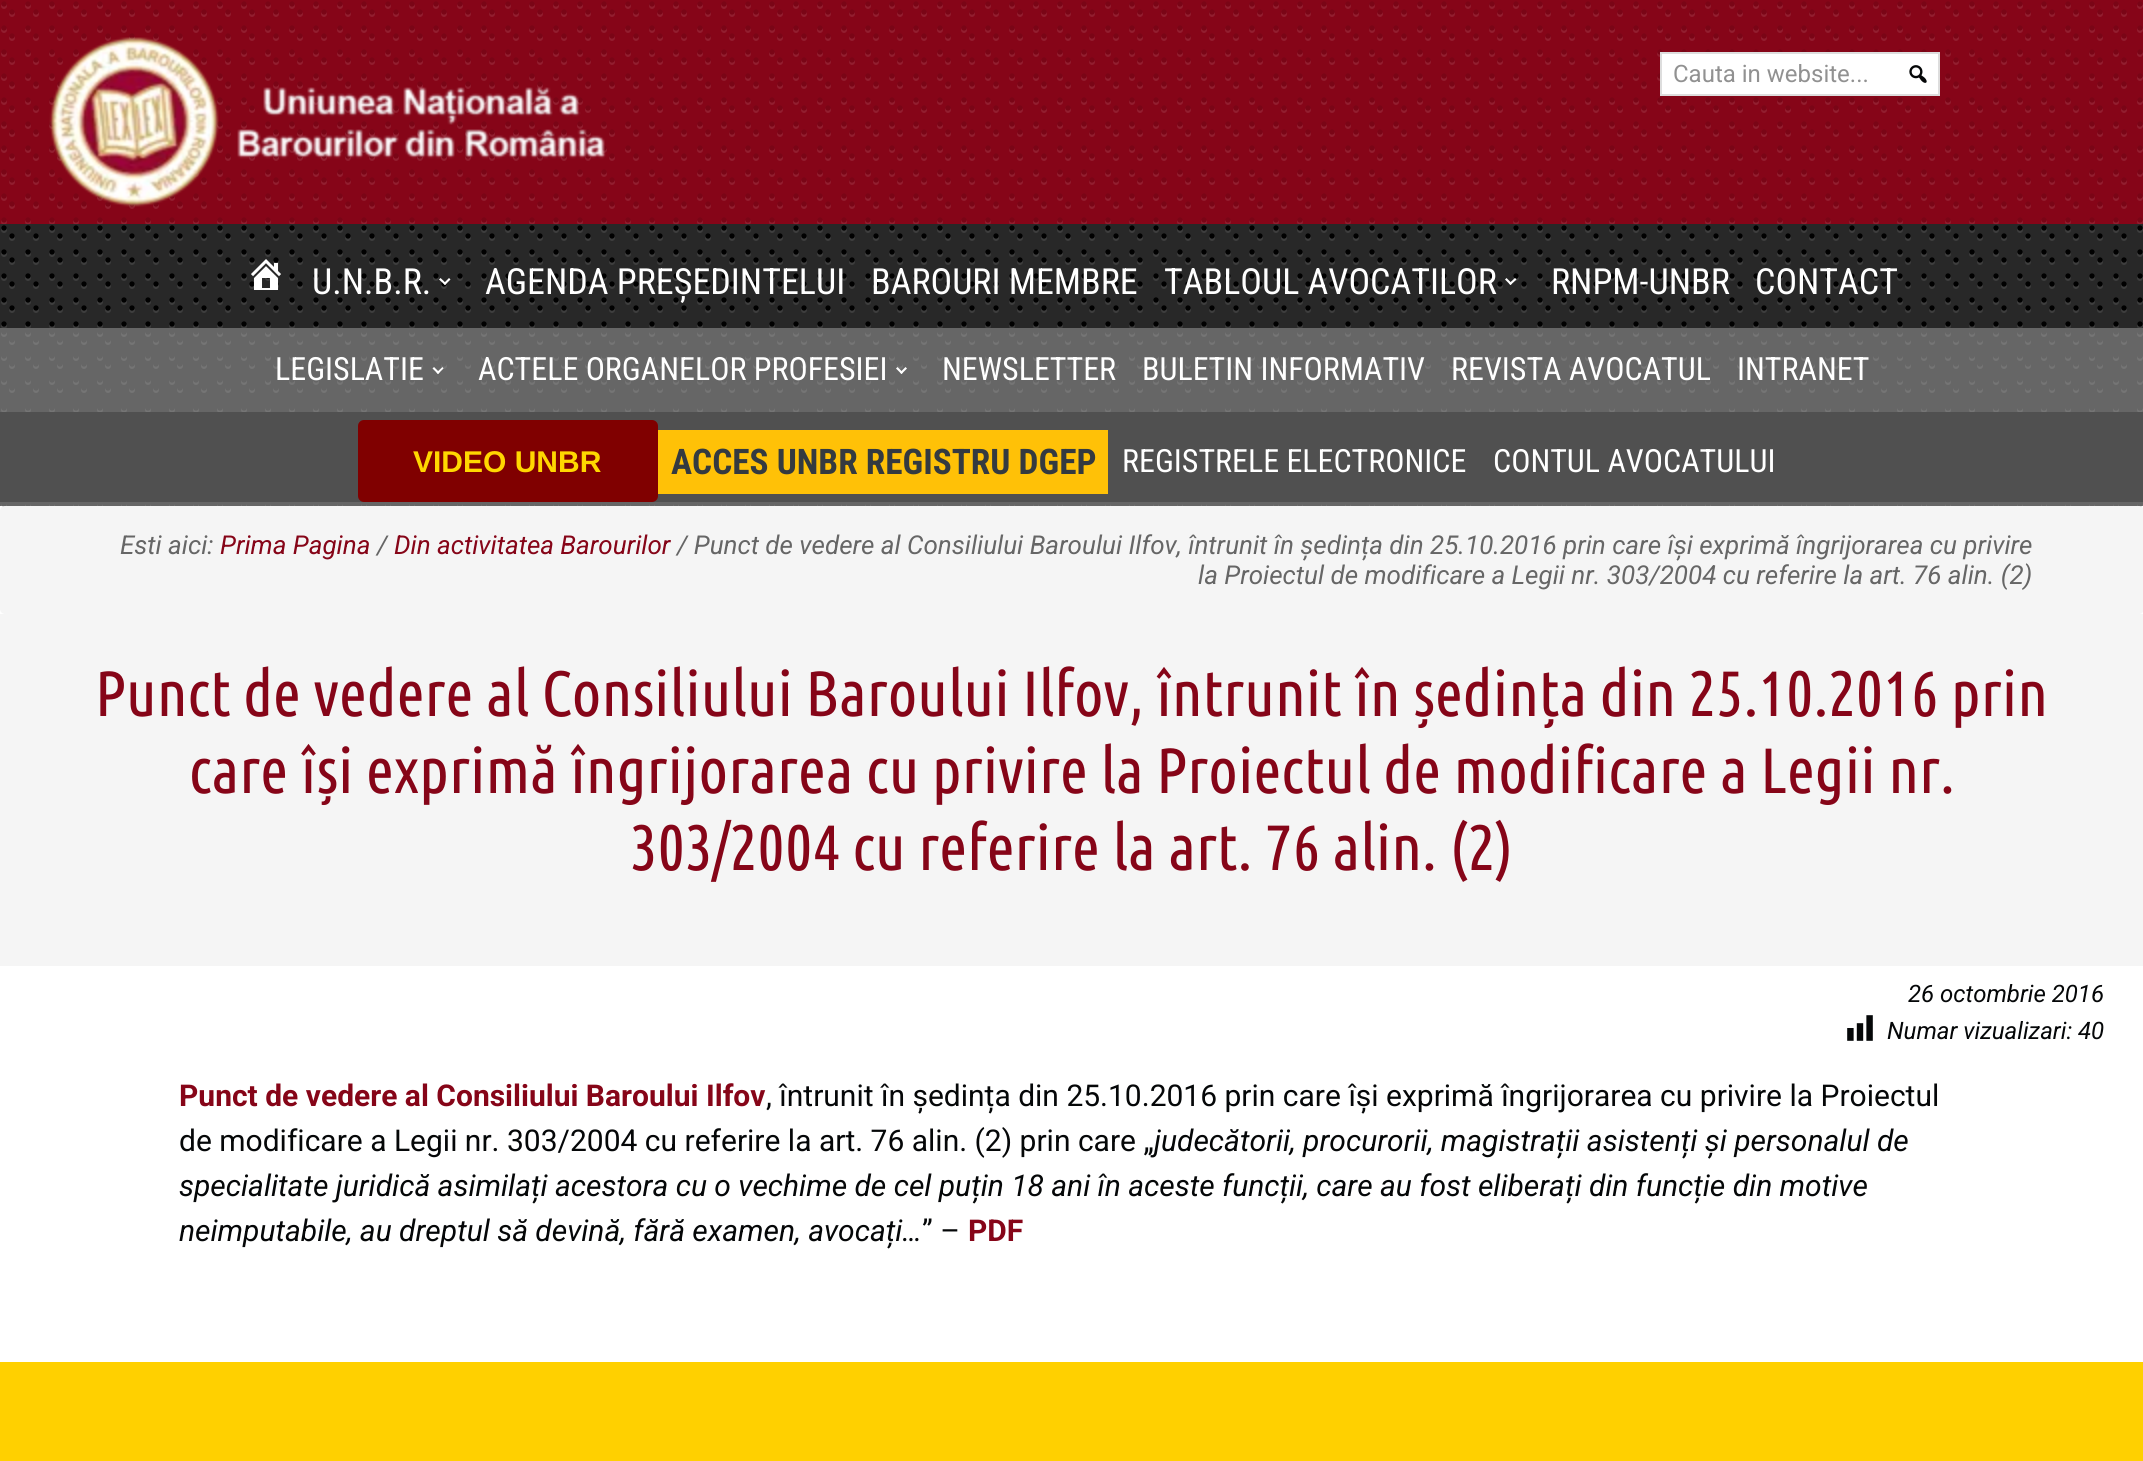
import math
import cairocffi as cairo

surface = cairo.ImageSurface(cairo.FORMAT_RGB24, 2143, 1461)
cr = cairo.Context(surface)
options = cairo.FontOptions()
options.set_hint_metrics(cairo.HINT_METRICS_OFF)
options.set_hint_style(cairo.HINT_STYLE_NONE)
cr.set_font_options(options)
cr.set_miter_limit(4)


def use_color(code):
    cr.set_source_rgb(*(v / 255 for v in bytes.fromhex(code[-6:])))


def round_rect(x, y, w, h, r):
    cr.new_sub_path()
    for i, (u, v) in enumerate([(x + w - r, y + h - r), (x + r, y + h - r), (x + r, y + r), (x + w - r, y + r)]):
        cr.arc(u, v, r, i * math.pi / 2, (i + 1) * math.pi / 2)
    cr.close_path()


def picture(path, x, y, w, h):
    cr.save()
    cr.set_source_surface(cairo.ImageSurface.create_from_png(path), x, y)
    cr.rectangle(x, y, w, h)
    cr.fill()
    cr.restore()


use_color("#ffffff")
cr.paint()
use_color("#860518")
cr.rectangle(0, 0, 2143, 224)
cr.fill()
cr.new_path()
cr.move_to(4, 6)
cr.line_to(2140.4, 6)
use_color("#921e2f")
cr.set_line_width(5.9)
cr.set_line_cap(cairo.LINE_CAP_ROUND)
cr.set_dash([0, 24])
cr.stroke()
cr.new_path()
cr.move_to(4, 30)
cr.line_to(2140.4, 30)
cr.stroke()
cr.new_path()
cr.move_to(4, 54)
cr.line_to(2140.4, 54)
cr.stroke()
cr.new_path()
cr.move_to(4, 78)
cr.line_to(2140.4, 78)
cr.stroke()
cr.new_path()
cr.move_to(4, 102)
cr.line_to(2140.4, 102)
cr.stroke()
cr.new_path()
cr.move_to(4, 126)
cr.line_to(2140.4, 126)
cr.stroke()
cr.new_path()
cr.move_to(4, 150)
cr.line_to(2140.4, 150)
cr.stroke()
cr.new_path()
cr.move_to(4, 174)
cr.line_to(2140.4, 174)
cr.stroke()
cr.new_path()
cr.move_to(4, 198)
cr.line_to(2140.4, 198)
cr.stroke()
cr.new_path()
cr.move_to(4, 222)
cr.line_to(2140.4, 222)
cr.set_source_rgba(1, 1, 1, 0.1)
cr.stroke()
cr.new_path()
cr.move_to(12, 14)
cr.line_to(2124.4, 14)
use_color("#921e2f")
cr.stroke()
cr.new_path()
cr.move_to(12, 38)
cr.line_to(2124.4, 38)
cr.stroke()
cr.new_path()
cr.move_to(12, 62)
cr.line_to(2124.4, 62)
cr.stroke()
cr.new_path()
cr.move_to(12, 86)
cr.line_to(2124.4, 86)
cr.stroke()
cr.new_path()
cr.move_to(12, 110)
cr.line_to(2124.4, 110)
cr.stroke()
cr.new_path()
cr.move_to(12, 134)
cr.line_to(2124.4, 134)
cr.stroke()
cr.new_path()
cr.move_to(12, 158)
cr.line_to(2124.4, 158)
cr.stroke()
cr.new_path()
cr.move_to(12, 182)
cr.line_to(2124.4, 182)
cr.stroke()
cr.new_path()
cr.move_to(12, 206)
cr.line_to(2124.4, 206)
cr.stroke()
cr.new_path()
cr.move_to(4, 4)
cr.line_to(2140.4, 4)
use_color("#7a0516")
cr.set_line_width(5.3)
cr.stroke()
cr.new_path()
cr.move_to(4, 28)
cr.line_to(2140.4, 28)
cr.stroke()
cr.new_path()
cr.move_to(4, 52)
cr.line_to(2140.4, 52)
cr.stroke()
cr.new_path()
cr.move_to(4, 76)
cr.line_to(2140.4, 76)
cr.stroke()
cr.new_path()
cr.move_to(4, 100)
cr.line_to(2140.4, 100)
cr.stroke()
cr.new_path()
cr.move_to(4, 124)
cr.line_to(2140.4, 124)
cr.stroke()
cr.new_path()
cr.move_to(4, 148)
cr.line_to(2140.4, 148)
cr.stroke()
cr.new_path()
cr.move_to(4, 172)
cr.line_to(2140.4, 172)
cr.stroke()
cr.new_path()
cr.move_to(4, 196)
cr.line_to(2140.4, 196)
cr.stroke()
cr.new_path()
cr.move_to(4, 220)
cr.line_to(2140.4, 220)
cr.stroke()
cr.new_path()
cr.move_to(12, 12)
cr.line_to(2124.4, 12)
cr.stroke()
cr.new_path()
cr.move_to(12, 36)
cr.line_to(2124.4, 36)
cr.stroke()
cr.new_path()
cr.move_to(12, 60)
cr.line_to(2124.4, 60)
cr.stroke()
cr.new_path()
cr.move_to(12, 84)
cr.line_to(2124.4, 84)
cr.stroke()
cr.new_path()
cr.move_to(12, 108)
cr.line_to(2124.4, 108)
cr.stroke()
cr.new_path()
cr.move_to(12, 132)
cr.line_to(2124.4, 132)
cr.stroke()
cr.new_path()
cr.move_to(12, 156)
cr.line_to(2124.4, 156)
cr.stroke()
cr.new_path()
cr.move_to(12, 180)
cr.line_to(2124.4, 180)
cr.stroke()
cr.new_path()
cr.move_to(12, 204)
cr.line_to(2124.4, 204)
cr.stroke()
picture("img1.png", 49, 37, 557, 170)
use_color("#ffffff")
cr.rectangle(1661, 53, 278, 42)
cr.fill_preserve()
use_color("#dddddd")
cr.set_line_width(2)
cr.set_line_cap(cairo.LINE_CAP_BUTT)
cr.set_dash([])
cr.stroke()
cr.select_font_face("Roboto")
cr.set_font_size(24)
use_color("#919191")
cr.move_to(1673, 82)
cr.show_text("Cauta in website...")
picture("img2.png", 1909, 65, 18, 18)
use_color("#282828")
cr.rectangle(0, 224, 2143, 104)
cr.fill()
cr.new_path()
cr.move_to(4, 230)
cr.line_to(2140.4, 230)
use_color("#3e3e3e")
cr.set_line_width(5.9)
cr.set_line_cap(cairo.LINE_CAP_ROUND)
cr.set_dash([0, 24])
cr.stroke()
cr.new_path()
cr.move_to(4, 254)
cr.line_to(2140.4, 254)
cr.stroke()
cr.new_path()
cr.move_to(4, 278)
cr.line_to(2140.4, 278)
cr.stroke()
cr.new_path()
cr.move_to(4, 302)
cr.line_to(2140.4, 302)
cr.stroke()
cr.new_path()
cr.move_to(4, 326)
cr.line_to(2140.4, 326)
cr.set_source_rgba(1, 1, 1, 0.1)
cr.stroke()
cr.new_path()
cr.move_to(12, 238)
cr.line_to(2124.4, 238)
use_color("#3e3e3e")
cr.stroke()
cr.new_path()
cr.move_to(12, 262)
cr.line_to(2124.4, 262)
cr.stroke()
cr.new_path()
cr.move_to(12, 286)
cr.line_to(2124.4, 286)
cr.stroke()
cr.new_path()
cr.move_to(12, 310)
cr.line_to(2124.4, 310)
cr.stroke()
cr.new_path()
cr.move_to(4, 228)
cr.line_to(2140.4, 228)
use_color("#000000")
cr.set_line_width(5.3)
cr.stroke()
cr.new_path()
cr.move_to(4, 252)
cr.line_to(2140.4, 252)
cr.stroke()
cr.new_path()
cr.move_to(4, 276)
cr.line_to(2140.4, 276)
cr.stroke()
cr.new_path()
cr.move_to(4, 300)
cr.line_to(2140.4, 300)
cr.stroke()
cr.new_path()
cr.move_to(4, 324)
cr.line_to(2140.4, 324)
cr.stroke()
cr.new_path()
cr.move_to(12, 236)
cr.line_to(2124.4, 236)
cr.stroke()
cr.new_path()
cr.move_to(12, 260)
cr.line_to(2124.4, 260)
cr.stroke()
cr.new_path()
cr.move_to(12, 284)
cr.line_to(2124.4, 284)
cr.stroke()
cr.new_path()
cr.move_to(12, 308)
cr.line_to(2124.4, 308)
cr.stroke()
picture("img3.png", 251, 259, 30, 31)
cr.select_font_face("Roboto Condensed")
cr.set_font_size(36)
use_color("#ffffff")
cr.move_to(312, 294)
cr.show_text("U.N.B.R.")
cr.new_path()
cr.move_to(449, 278)
cr.line_to(450.5, 279.5)
cr.line_to(445, 285)
cr.line_to(443.5, 283.5)
cr.close_path()
cr.fill()
cr.new_path()
cr.move_to(440.5, 278)
cr.line_to(446.5, 283.5)
cr.line_to(445, 285)
cr.line_to(439, 279.5)
cr.close_path()
cr.fill()
cr.move_to(485, 294)
cr.show_text("AGENDA PREȘEDINTELUI")
cr.move_to(871, 294)
cr.show_text("BAROURI MEMBRE")
cr.move_to(1164, 294)
cr.show_text("TABLOUL AVOCATILOR")
cr.new_path()
cr.move_to(1515, 278)
cr.line_to(1516.5, 279.5)
cr.line_to(1510.5, 285)
cr.line_to(1509, 283.5)
cr.close_path()
cr.fill()
cr.new_path()
cr.move_to(1506.5, 278)
cr.line_to(1512, 283.5)
cr.line_to(1510.5, 285)
cr.line_to(1505, 279.5)
cr.close_path()
cr.fill()
cr.move_to(1551, 294)
cr.show_text("RNPM-UNBR")
cr.move_to(1755, 294)
cr.show_text("CONTACT")
use_color("#666666")
cr.rectangle(0, 328, 2143, 76)
cr.fill()
cr.new_path()
cr.move_to(4, 334)
cr.line_to(2140.4, 334)
use_color("#757575")
cr.set_line_width(5.9)
cr.stroke()
cr.new_path()
cr.move_to(4, 358)
cr.line_to(2140.4, 358)
cr.stroke()
cr.new_path()
cr.move_to(4, 382)
cr.line_to(2140.4, 382)
cr.stroke()
cr.new_path()
cr.move_to(12, 342)
cr.line_to(2124.4, 342)
cr.stroke()
cr.new_path()
cr.move_to(12, 366)
cr.line_to(2124.4, 366)
cr.stroke()
cr.new_path()
cr.move_to(12, 390)
cr.line_to(2124.4, 390)
cr.stroke()
cr.new_path()
cr.move_to(4, 332)
cr.line_to(2140.4, 332)
use_color("#666666")
cr.set_line_width(5.3)
cr.stroke()
cr.new_path()
cr.move_to(4, 356)
cr.line_to(2140.4, 356)
cr.stroke()
cr.new_path()
cr.move_to(4, 380)
cr.line_to(2140.4, 380)
cr.stroke()
cr.new_path()
cr.move_to(4, 404)
cr.line_to(2140.4, 404)
cr.stroke()
cr.new_path()
cr.move_to(12, 340)
cr.line_to(2124.4, 340)
cr.stroke()
cr.new_path()
cr.move_to(12, 364)
cr.line_to(2124.4, 364)
cr.stroke()
cr.new_path()
cr.move_to(12, 388)
cr.line_to(2124.4, 388)
cr.stroke()
cr.set_font_size(32)
use_color("#ffffff")
cr.move_to(275, 380)
cr.show_text("LEGISLATIE")
cr.new_path()
cr.move_to(442.5, 367)
cr.line_to(443.5, 368.5)
cr.line_to(438, 374)
cr.line_to(436.5, 372.5)
cr.close_path()
cr.fill()
cr.new_path()
cr.move_to(434, 367)
cr.line_to(439.5, 372.5)
cr.line_to(438, 374)
cr.line_to(432.5, 368.5)
cr.close_path()
cr.fill()
cr.move_to(478, 380)
cr.show_text("ACTELE ORGANELOR PROFESIEI")
cr.new_path()
cr.move_to(905.5, 367)
cr.line_to(907, 368.5)
cr.line_to(901.5, 374)
cr.line_to(900, 372.5)
cr.close_path()
cr.fill()
cr.new_path()
cr.move_to(897.5, 367)
cr.line_to(903, 372.5)
cr.line_to(901.5, 374)
cr.line_to(896, 368.5)
cr.close_path()
cr.fill()
cr.move_to(942, 380)
cr.show_text("NEWSLETTER")
cr.move_to(1142, 380)
cr.show_text("BULETIN INFORMATIV")
cr.move_to(1451, 380)
cr.show_text("REVISTA AVOCATUL")
cr.move_to(1737, 380)
cr.show_text("INTRANET")
use_color("#666666")
cr.rectangle(0, 404, 2143, 102)
cr.fill()
cr.new_path()
cr.move_to(4, 410)
cr.line_to(2140.4, 410)
use_color("#757575")
cr.set_line_width(5.9)
cr.stroke()
cr.new_path()
cr.move_to(4, 506)
cr.line_to(2140.4, 506)
cr.set_source_rgba(1, 1, 1, 0.1)
cr.stroke()
cr.new_path()
cr.move_to(4, 408)
cr.line_to(2140.4, 408)
use_color("#666666")
cr.set_line_width(5.3)
cr.stroke()
cr.new_path()
cr.move_to(4, 504)
cr.line_to(2140.4, 504)
cr.stroke()
use_color("#505050")
cr.rectangle(0, 412, 2143, 90)
cr.fill()
use_color("#800000")
round_rect(358, 420, 300, 82, 6)
cr.fill()
cr.select_font_face("Liberation Sans", cairo.FONT_SLANT_NORMAL, cairo.FONT_WEIGHT_BOLD)
cr.set_font_size(30)
use_color("#ffd700")
cr.move_to(413, 472)
cr.show_text("VIDEO UNBR")
use_color("#ffc107")
cr.rectangle(658, 430, 450, 64)
cr.fill()
cr.select_font_face("Roboto Condensed", cairo.FONT_SLANT_NORMAL, cairo.FONT_WEIGHT_BOLD)
cr.set_font_size(35.25)
use_color("#343a40")
cr.move_to(671, 474)
cr.show_text("ACCES UNBR REGISTRU DGEP")
cr.select_font_face("Roboto Condensed")
cr.set_font_size(32)
use_color("#ffffff")
cr.move_to(1122, 472)
cr.show_text("REGISTRELE ELECTRONICE")
cr.move_to(1493, 472)
cr.show_text("CONTUL AVOCATULUI")
use_color("#f5f5f5")
round_rect(0, 506, 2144, 108, 5)
cr.fill()
cr.select_font_face("Roboto", cairo.FONT_SLANT_ITALIC)
cr.set_font_size(26)
use_color("#666666")
cr.move_to(120, 554)
cr.show_text("Esti aici:")
use_color("#860518")
cr.move_to(220, 554)
cr.show_text("Prima Pagina")
use_color("#666666")
cr.move_to(377, 554)
cr.show_text("/")
use_color("#860518")
cr.move_to(394, 554)
cr.show_text("Din activitatea Barourilor")
use_color("#666666")
cr.move_to(677, 554)
cr.show_text("/ Punct de vedere al Consiliului Baroului Ilfov, întrunit în ședința din 25.10.2016 prin care își exprimă îngrijorarea cu privire")
cr.move_to(1198, 584)
cr.show_text("la Proiectul de modificare a Legii nr. 303/2004 cu referire la art. 76 alin. (2)")
use_color("#f5f5f5")
cr.rectangle(0, 614, 2143, 352)
cr.fill()
cr.select_font_face("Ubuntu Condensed")
cr.set_font_size(64)
use_color("#860518")
cr.move_to(95, 716)
cr.show_text("Punct de vedere al Consiliului Baroului Ilfov, întrunit în ședința din 25.10.2016 prin")
cr.move_to(189, 793)
cr.show_text("care își exprimă îngrijorarea cu privire la Proiectul de modificare a Legii nr.")
cr.move_to(630, 870)
cr.show_text("303/2004 cu referire la art. 76 alin. (2)")
cr.select_font_face("Roboto", cairo.FONT_SLANT_ITALIC)
cr.set_font_size(24)
use_color("#050708")
cr.move_to(1908, 1002)
cr.show_text("26 octombrie 2016")
picture("img4.png", 1847, 1015, 26, 26)
cr.move_to(1887, 1039)
cr.show_text("Numar vizualizari: 40")
cr.select_font_face("Roboto", cairo.FONT_SLANT_NORMAL, cairo.FONT_WEIGHT_BOLD)
cr.set_font_size(30)
use_color("#860518")
cr.move_to(179, 1106)
cr.show_text("Punct de vedere al Consiliului Baroului Ilfov")
cr.select_font_face("Roboto")
use_color("#050708")
cr.move_to(766, 1106)
cr.show_text(", întrunit în ședința din 25.10.2016 prin care își exprimă îngrijorarea cu privire la Proiectul")
cr.move_to(179, 1151)
cr.show_text("de modificare a Legii nr. 303/2004 cu referire la art. 76 alin. (2) prin care „")
cr.select_font_face("Roboto", cairo.FONT_SLANT_ITALIC)
cr.move_to(1154, 1151)
cr.show_text("judecătorii, procurorii, magistrații asistenți și personalul de")
cr.move_to(179, 1196)
cr.show_text("specialitate juridică asimilați acestora cu o vechime de cel puțin 18 ani în aceste funcții, care au fost eliberați din funcție din motive")
cr.move_to(179, 1241)
cr.show_text("neimputabile, au dreptul să devină, fără examen, avocați…")
cr.select_font_face("Roboto")
cr.move_to(922, 1241)
cr.show_text("” –")
cr.select_font_face("Roboto", cairo.FONT_SLANT_NORMAL, cairo.FONT_WEIGHT_BOLD)
use_color("#860518")
cr.move_to(968, 1241)
cr.show_text("PDF")
use_color("#ffd000")
cr.rectangle(0, 1362, 2143, 99)
cr.fill()
surface.write_to_png("result.png")
